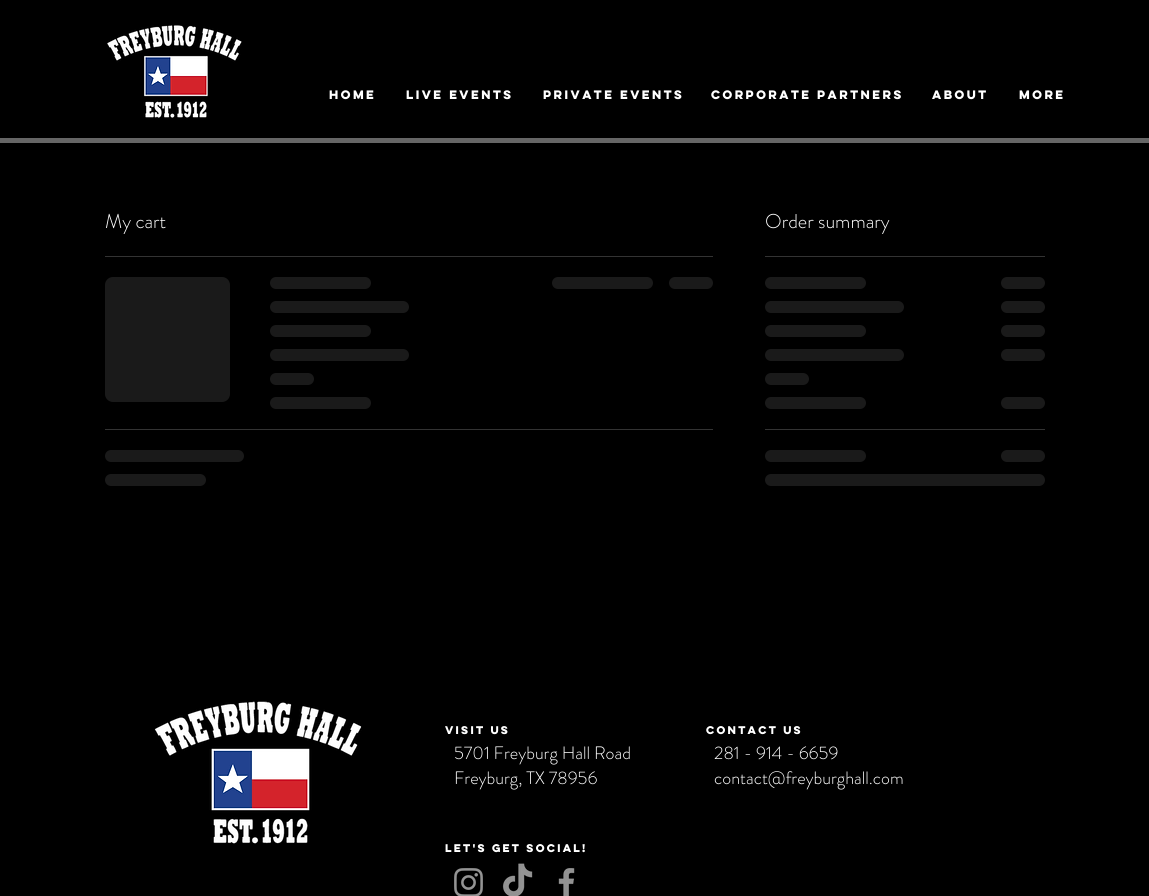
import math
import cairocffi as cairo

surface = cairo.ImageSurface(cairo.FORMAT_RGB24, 1149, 896)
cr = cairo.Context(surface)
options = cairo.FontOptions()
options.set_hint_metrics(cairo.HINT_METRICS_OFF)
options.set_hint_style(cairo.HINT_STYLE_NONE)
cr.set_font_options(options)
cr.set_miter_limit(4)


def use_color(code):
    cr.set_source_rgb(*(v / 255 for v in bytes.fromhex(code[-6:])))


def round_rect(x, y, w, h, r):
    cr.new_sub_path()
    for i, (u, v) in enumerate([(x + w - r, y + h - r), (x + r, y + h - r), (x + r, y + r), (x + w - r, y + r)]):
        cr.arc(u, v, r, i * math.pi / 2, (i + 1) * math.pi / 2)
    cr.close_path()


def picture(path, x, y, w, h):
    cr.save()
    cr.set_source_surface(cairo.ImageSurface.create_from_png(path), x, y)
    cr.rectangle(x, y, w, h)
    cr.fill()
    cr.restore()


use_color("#000000")
cr.paint()
picture("img1.png", 107, 25, 135, 93)
cr.select_font_face("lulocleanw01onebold", cairo.FONT_SLANT_NORMAL, cairo.FONT_WEIGHT_BOLD)
cr.set_font_size(11)
use_color("#ffffff")
cr.move_to(329, 99)
cr.show_text("HOME")
cr.move_to(406, 99)
cr.show_text("Live Events")
cr.move_to(543, 99)
cr.show_text("Private Events")
cr.move_to(711, 99)
cr.show_text("Corporate Partners")
cr.move_to(932, 99)
cr.show_text("About")
cr.move_to(1019, 99)
cr.show_text("More")
use_color("#666666")
cr.rectangle(0, 138, 1149, 5)
cr.fill()
use_color("#333333")
cr.rectangle(105, 256, 608, 1)
cr.fill()
cr.select_font_face("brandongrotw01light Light")
cr.set_font_size(20)
use_color("#ffffff")
cr.move_to(105, 228)
cr.show_text("My cart")
gradient = cairo.LinearGradient(105, 340, 605, 340)
gradient.add_color_stop_rgba(0.25, 0.102, 0.102, 0.102, 1)
gradient.add_color_stop_rgba(0.37, 0.2, 0.2, 0.2, 1)
gradient.add_color_stop_rgba(0.63, 0.102, 0.102, 0.102, 1)
cr.set_source(gradient)
round_rect(105, 277, 125, 125, 8)
cr.fill()
gradient = cairo.LinearGradient(270, 283, 674, 283)
gradient.add_color_stop_rgba(0.25, 0.102, 0.102, 0.102, 1)
gradient.add_color_stop_rgba(0.37, 0.2, 0.2, 0.2, 1)
gradient.add_color_stop_rgba(0.63, 0.102, 0.102, 0.102, 1)
cr.set_source(gradient)
round_rect(270, 277, 101, 12, 6)
cr.fill()
gradient = cairo.LinearGradient(270, 307, 826, 307)
gradient.add_color_stop_rgba(0.25, 0.102, 0.102, 0.102, 1)
gradient.add_color_stop_rgba(0.37, 0.2, 0.2, 0.2, 1)
gradient.add_color_stop_rgba(0.63, 0.102, 0.102, 0.102, 1)
cr.set_source(gradient)
round_rect(270, 301, 139, 12, 6)
cr.fill()
gradient = cairo.LinearGradient(270, 331, 674, 331)
gradient.add_color_stop_rgba(0.25, 0.102, 0.102, 0.102, 1)
gradient.add_color_stop_rgba(0.37, 0.2, 0.2, 0.2, 1)
gradient.add_color_stop_rgba(0.63, 0.102, 0.102, 0.102, 1)
cr.set_source(gradient)
round_rect(270, 325, 101, 12, 6)
cr.fill()
gradient = cairo.LinearGradient(270, 355, 826, 355)
gradient.add_color_stop_rgba(0.25, 0.102, 0.102, 0.102, 1)
gradient.add_color_stop_rgba(0.37, 0.2, 0.2, 0.2, 1)
gradient.add_color_stop_rgba(0.63, 0.102, 0.102, 0.102, 1)
cr.set_source(gradient)
round_rect(270, 349, 139, 12, 6)
cr.fill()
gradient = cairo.LinearGradient(270, 379, 446, 379)
gradient.add_color_stop_rgba(0.25, 0.102, 0.102, 0.102, 1)
gradient.add_color_stop_rgba(0.37, 0.2, 0.2, 0.2, 1)
gradient.add_color_stop_rgba(0.63, 0.102, 0.102, 0.102, 1)
cr.set_source(gradient)
round_rect(270, 373, 44, 12, 6)
cr.fill()
gradient = cairo.LinearGradient(270, 403, 674, 403)
gradient.add_color_stop_rgba(0.25, 0.102, 0.102, 0.102, 1)
gradient.add_color_stop_rgba(0.37, 0.2, 0.2, 0.2, 1)
gradient.add_color_stop_rgba(0.63, 0.102, 0.102, 0.102, 1)
cr.set_source(gradient)
round_rect(270, 397, 101, 12, 6)
cr.fill()
gradient = cairo.LinearGradient(552, 283, 956, 283)
gradient.add_color_stop_rgba(0.25, 0.102, 0.102, 0.102, 1)
gradient.add_color_stop_rgba(0.37, 0.2, 0.2, 0.2, 1)
gradient.add_color_stop_rgba(0.63, 0.102, 0.102, 0.102, 1)
cr.set_source(gradient)
round_rect(552, 277, 101, 12, 6)
cr.fill()
gradient = cairo.LinearGradient(669, 283, 845, 283)
gradient.add_color_stop_rgba(0.25, 0.102, 0.102, 0.102, 1)
gradient.add_color_stop_rgba(0.37, 0.2, 0.2, 0.2, 1)
gradient.add_color_stop_rgba(0.63, 0.102, 0.102, 0.102, 1)
cr.set_source(gradient)
round_rect(669, 277, 44, 12, 6)
cr.fill()
use_color("#333333")
cr.rectangle(105, 429, 608, 1)
cr.fill()
gradient = cairo.LinearGradient(105, 456, 661, 456)
gradient.add_color_stop_rgba(0.25, 0.102, 0.102, 0.102, 1)
gradient.add_color_stop_rgba(0.37, 0.2, 0.2, 0.2, 1)
gradient.add_color_stop_rgba(0.63, 0.102, 0.102, 0.102, 1)
cr.set_source(gradient)
round_rect(105, 450, 139, 12, 6)
cr.fill()
gradient = cairo.LinearGradient(105, 480, 509, 480)
gradient.add_color_stop_rgba(0.25, 0.102, 0.102, 0.102, 1)
gradient.add_color_stop_rgba(0.37, 0.2, 0.2, 0.2, 1)
gradient.add_color_stop_rgba(0.63, 0.102, 0.102, 0.102, 1)
cr.set_source(gradient)
round_rect(105, 474, 101, 12, 6)
cr.fill()
use_color("#333333")
cr.rectangle(765, 256, 280, 1)
cr.fill()
use_color("#ffffff")
cr.move_to(765, 228)
cr.show_text("Order summary")
gradient = cairo.LinearGradient(765, 283, 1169, 283)
gradient.add_color_stop_rgba(0.25, 0.102, 0.102, 0.102, 1)
gradient.add_color_stop_rgba(0.37, 0.2, 0.2, 0.2, 1)
gradient.add_color_stop_rgba(0.63, 0.102, 0.102, 0.102, 1)
cr.set_source(gradient)
round_rect(765, 277, 101, 12, 6)
cr.fill()
gradient = cairo.LinearGradient(1001, 283, 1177, 283)
gradient.add_color_stop_rgba(0.25, 0.102, 0.102, 0.102, 1)
gradient.add_color_stop_rgba(0.37, 0.2, 0.2, 0.2, 1)
gradient.add_color_stop_rgba(0.63, 0.102, 0.102, 0.102, 1)
cr.set_source(gradient)
round_rect(1001, 277, 44, 12, 6)
cr.fill()
gradient = cairo.LinearGradient(765, 307, 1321, 307)
gradient.add_color_stop_rgba(0.25, 0.102, 0.102, 0.102, 1)
gradient.add_color_stop_rgba(0.37, 0.2, 0.2, 0.2, 1)
gradient.add_color_stop_rgba(0.63, 0.102, 0.102, 0.102, 1)
cr.set_source(gradient)
round_rect(765, 301, 139, 12, 6)
cr.fill()
gradient = cairo.LinearGradient(1001, 307, 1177, 307)
gradient.add_color_stop_rgba(0.25, 0.102, 0.102, 0.102, 1)
gradient.add_color_stop_rgba(0.37, 0.2, 0.2, 0.2, 1)
gradient.add_color_stop_rgba(0.63, 0.102, 0.102, 0.102, 1)
cr.set_source(gradient)
round_rect(1001, 301, 44, 12, 6)
cr.fill()
gradient = cairo.LinearGradient(765, 331, 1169, 331)
gradient.add_color_stop_rgba(0.25, 0.102, 0.102, 0.102, 1)
gradient.add_color_stop_rgba(0.37, 0.2, 0.2, 0.2, 1)
gradient.add_color_stop_rgba(0.63, 0.102, 0.102, 0.102, 1)
cr.set_source(gradient)
round_rect(765, 325, 101, 12, 6)
cr.fill()
gradient = cairo.LinearGradient(1001, 331, 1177, 331)
gradient.add_color_stop_rgba(0.25, 0.102, 0.102, 0.102, 1)
gradient.add_color_stop_rgba(0.37, 0.2, 0.2, 0.2, 1)
gradient.add_color_stop_rgba(0.63, 0.102, 0.102, 0.102, 1)
cr.set_source(gradient)
round_rect(1001, 325, 44, 12, 6)
cr.fill()
gradient = cairo.LinearGradient(765, 355, 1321, 355)
gradient.add_color_stop_rgba(0.25, 0.102, 0.102, 0.102, 1)
gradient.add_color_stop_rgba(0.37, 0.2, 0.2, 0.2, 1)
gradient.add_color_stop_rgba(0.63, 0.102, 0.102, 0.102, 1)
cr.set_source(gradient)
round_rect(765, 349, 139, 12, 6)
cr.fill()
gradient = cairo.LinearGradient(1001, 355, 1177, 355)
gradient.add_color_stop_rgba(0.25, 0.102, 0.102, 0.102, 1)
gradient.add_color_stop_rgba(0.37, 0.2, 0.2, 0.2, 1)
gradient.add_color_stop_rgba(0.63, 0.102, 0.102, 0.102, 1)
cr.set_source(gradient)
round_rect(1001, 349, 44, 12, 6)
cr.fill()
gradient = cairo.LinearGradient(765, 379, 941, 379)
gradient.add_color_stop_rgba(0.25, 0.102, 0.102, 0.102, 1)
gradient.add_color_stop_rgba(0.37, 0.2, 0.2, 0.2, 1)
gradient.add_color_stop_rgba(0.63, 0.102, 0.102, 0.102, 1)
cr.set_source(gradient)
round_rect(765, 373, 44, 12, 6)
cr.fill()
gradient = cairo.LinearGradient(765, 403, 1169, 403)
gradient.add_color_stop_rgba(0.25, 0.102, 0.102, 0.102, 1)
gradient.add_color_stop_rgba(0.37, 0.2, 0.2, 0.2, 1)
gradient.add_color_stop_rgba(0.63, 0.102, 0.102, 0.102, 1)
cr.set_source(gradient)
round_rect(765, 397, 101, 12, 6)
cr.fill()
gradient = cairo.LinearGradient(1001, 403, 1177, 403)
gradient.add_color_stop_rgba(0.25, 0.102, 0.102, 0.102, 1)
gradient.add_color_stop_rgba(0.37, 0.2, 0.2, 0.2, 1)
gradient.add_color_stop_rgba(0.63, 0.102, 0.102, 0.102, 1)
cr.set_source(gradient)
round_rect(1001, 397, 44, 12, 6)
cr.fill()
use_color("#333333")
cr.rectangle(765, 429, 280, 1)
cr.fill()
gradient = cairo.LinearGradient(765, 456, 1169, 456)
gradient.add_color_stop_rgba(0.25, 0.102, 0.102, 0.102, 1)
gradient.add_color_stop_rgba(0.37, 0.2, 0.2, 0.2, 1)
gradient.add_color_stop_rgba(0.63, 0.102, 0.102, 0.102, 1)
cr.set_source(gradient)
round_rect(765, 450, 101, 12, 6)
cr.fill()
gradient = cairo.LinearGradient(1001, 456, 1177, 456)
gradient.add_color_stop_rgba(0.25, 0.102, 0.102, 0.102, 1)
gradient.add_color_stop_rgba(0.37, 0.2, 0.2, 0.2, 1)
gradient.add_color_stop_rgba(0.63, 0.102, 0.102, 0.102, 1)
cr.set_source(gradient)
round_rect(1001, 450, 44, 12, 6)
cr.fill()
gradient = cairo.LinearGradient(765, 480, 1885, 480)
gradient.add_color_stop_rgba(0.25, 0.102, 0.102, 0.102, 1)
gradient.add_color_stop_rgba(0.37, 0.2, 0.2, 0.2, 1)
gradient.add_color_stop_rgba(0.63, 0.102, 0.102, 0.102, 1)
cr.set_source(gradient)
round_rect(765, 474, 280, 12, 6)
cr.fill()
picture("img2.png", 154, 701, 208, 143)
cr.select_font_face("lulocleanw01onebold", cairo.FONT_SLANT_NORMAL, cairo.FONT_WEIGHT_BOLD)
cr.set_font_size(10)
use_color("#ffffff")
cr.move_to(445, 734)
cr.show_text("visit us")
cr.select_font_face("brandongrotw01light Light")
cr.set_font_size(18)
cr.move_to(454, 759)
cr.show_text("5701 Freyburg Hall Road")
cr.move_to(454, 784)
cr.show_text("Freyburg, TX 78956")
cr.select_font_face("lulocleanw01onebold", cairo.FONT_SLANT_NORMAL, cairo.FONT_WEIGHT_BOLD)
cr.set_font_size(10)
cr.move_to(706, 734)
cr.show_text("contact us")
cr.select_font_face("brandongrotw01light Light")
cr.set_font_size(18)
cr.move_to(714, 759)
cr.show_text("281 - 914 - 6659")
cr.move_to(714, 784)
cr.show_text("contact@freyburghall.com")
cr.select_font_face("lulocleanw01onebold", cairo.FONT_SLANT_NORMAL, cairo.FONT_WEIGHT_BOLD)
cr.set_font_size(10)
cr.move_to(445, 852)
cr.show_text("Let's get social!")
picture("img3.png", 454, 868, 29, 28)
picture("img4.png", 502, 863, 31, 33)
picture("img5.png", 558, 868, 17, 28)
surface.write_to_png("result.png")
